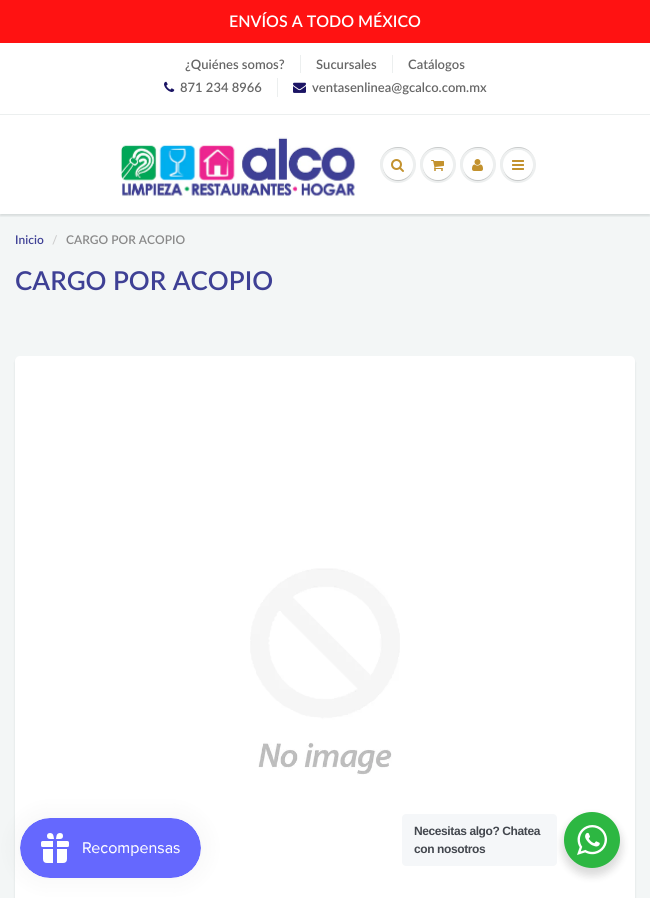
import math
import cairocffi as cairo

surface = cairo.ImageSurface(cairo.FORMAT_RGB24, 650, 898)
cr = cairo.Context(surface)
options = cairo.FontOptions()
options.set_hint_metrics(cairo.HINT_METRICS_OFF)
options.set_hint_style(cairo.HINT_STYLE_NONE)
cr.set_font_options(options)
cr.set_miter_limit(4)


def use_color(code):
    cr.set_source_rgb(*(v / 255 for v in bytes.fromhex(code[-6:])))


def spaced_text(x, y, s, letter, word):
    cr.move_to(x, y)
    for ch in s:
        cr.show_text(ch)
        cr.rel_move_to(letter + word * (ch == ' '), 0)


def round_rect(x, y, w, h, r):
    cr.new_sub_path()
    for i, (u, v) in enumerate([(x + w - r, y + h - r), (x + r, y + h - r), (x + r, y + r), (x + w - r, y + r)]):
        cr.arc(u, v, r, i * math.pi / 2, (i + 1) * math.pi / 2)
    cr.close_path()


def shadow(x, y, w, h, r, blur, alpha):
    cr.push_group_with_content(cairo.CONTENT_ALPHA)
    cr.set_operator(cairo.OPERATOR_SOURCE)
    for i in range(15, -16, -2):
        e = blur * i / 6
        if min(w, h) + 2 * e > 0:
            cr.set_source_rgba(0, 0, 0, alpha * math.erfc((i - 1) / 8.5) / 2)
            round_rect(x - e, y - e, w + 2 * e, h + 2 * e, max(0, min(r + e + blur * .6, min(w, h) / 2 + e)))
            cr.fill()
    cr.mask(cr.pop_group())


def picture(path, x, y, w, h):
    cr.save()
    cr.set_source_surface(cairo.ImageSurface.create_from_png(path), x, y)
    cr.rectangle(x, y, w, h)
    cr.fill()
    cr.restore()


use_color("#ffffff")
cr.paint()
use_color("#ff1212")
cr.rectangle(0, 0, 650, 43)
cr.fill()
cr.select_font_face("Lato SemiBold")
cr.set_font_size(16)
use_color("#ffffff")
cr.move_to(229, 27)
cr.show_text("ENVÍOS A TODO MÉXICO")
cr.set_font_size(13)
use_color("#666666")
cr.move_to(185, 69)
cr.show_text("¿Quiénes somos?")
use_color("#ecefef")
cr.rectangle(300, 55, 1, 18)
cr.fill()
use_color("#666666")
cr.move_to(316, 69)
cr.show_text("Sucursales")
use_color("#ecefef")
cr.rectangle(392, 55, 1, 18)
cr.fill()
use_color("#666666")
cr.move_to(408, 69)
cr.show_text("Catálogos")
picture("img1.png", 164, 81, 11, 11)
cr.move_to(180, 92)
cr.show_text("871 234 8966")
use_color("#ecefef")
cr.rectangle(277, 78, 1, 19)
cr.fill()
picture("img2.png", 293, 82, 13, 11)
use_color("#666666")
cr.move_to(312, 92)
cr.show_text("ventasenlinea@gcalco.com.mx")
use_color("#f3f6f6")
cr.rectangle(0, 214, 650, 684)
cr.fill()
cr.save()
cr.rectangle(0, 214, 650, 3)
cr.clip()
use_color("#0b191c")
shadow(0, 116, 650, 100, 0, 1, 0.12)
cr.restore()
use_color("#ecefef")
cr.rectangle(0, 114, 650, 1)
cr.fill()
picture("img3.png", 120, 137, 236, 61)
use_color("#edefef")
cr.arc(398, 165, 18, 0, 2 * math.pi)
cr.fill()
use_color("#c9cbcb")
cr.new_path()
cr.move_to(398, 148)
cr.curve_to(410, 148, 416, 156.5, 416, 165.5)
cr.curve_to(416, 162, 415, 158, 413, 155)
cr.curve_to(403, 140, 379.5, 147.5, 380, 165.5)
cr.curve_to(380, 156.5, 386, 148, 398, 148)
cr.close_path()
cr.fill()
cr.new_path()
cr.move_to(383, 165.5)
cr.curve_to(382.5, 180.5, 402, 187, 410.5, 174.5)
cr.curve_to(412, 172, 413, 168.5, 413, 165.5)
cr.curve_to(412.5, 184.5, 383.5, 184.5, 383, 165.5)
cr.close_path()
cr.fill()
use_color("#ffffff")
cr.arc(398, 165, 15, 0, 2 * math.pi)
cr.fill()
cr.new_path()
cr.move_to(398, 151)
cr.curve_to(408, 151, 413, 158, 413, 165.5)
cr.curve_to(413, 162.5, 412, 159, 410.5, 156.5)
cr.curve_to(402, 144, 382.5, 150.5, 383, 165.5)
cr.curve_to(383, 158, 388, 151, 398, 151)
cr.close_path()
cr.fill()
picture("img4.png", 391, 159, 13, 13)
use_color("#edefef")
cr.arc(438, 165, 18, 0, 2 * math.pi)
cr.fill()
use_color("#c9cbcb")
cr.new_path()
cr.move_to(438, 148)
cr.curve_to(450, 148, 456, 156.5, 456, 165.5)
cr.curve_to(456, 162, 455, 158, 453, 155)
cr.curve_to(443, 140, 419.5, 147.5, 420, 165.5)
cr.curve_to(420, 156.5, 426, 148, 438, 148)
cr.close_path()
cr.fill()
cr.new_path()
cr.move_to(423, 165.5)
cr.curve_to(422.5, 180.5, 442, 187, 450.5, 174.5)
cr.curve_to(452, 172, 453, 168.5, 453, 165.5)
cr.curve_to(452.5, 184.5, 423.5, 184.5, 423, 165.5)
cr.close_path()
cr.fill()
use_color("#ffffff")
cr.arc(438, 165, 15, 0, 2 * math.pi)
cr.fill()
cr.new_path()
cr.move_to(438, 151)
cr.curve_to(448, 151, 453, 158, 453, 165.5)
cr.curve_to(453, 162.5, 452, 159, 450.5, 156.5)
cr.curve_to(442, 144, 422.5, 150.5, 423, 165.5)
cr.curve_to(423, 158, 428, 151, 438, 151)
cr.close_path()
cr.fill()
picture("img5.png", 431, 160, 13, 11)
use_color("#edefef")
cr.arc(478, 165, 18, 0, 2 * math.pi)
cr.fill()
use_color("#c9cbcb")
cr.new_path()
cr.move_to(478, 148)
cr.curve_to(490, 148, 496, 156.5, 496, 165.5)
cr.curve_to(496, 162, 495, 158, 493, 155)
cr.curve_to(483, 140, 459.5, 147.5, 460, 165.5)
cr.curve_to(460, 156.5, 466, 148, 478, 148)
cr.close_path()
cr.fill()
cr.new_path()
cr.move_to(463, 165.5)
cr.curve_to(463, 168.5, 464, 172, 465.5, 174.5)
cr.curve_to(474, 187, 493.5, 180.5, 493, 165.5)
cr.curve_to(492.5, 184.5, 463.5, 184.5, 463, 165.5)
cr.close_path()
cr.fill()
use_color("#ffffff")
cr.arc(478, 165, 15, 0, 2 * math.pi)
cr.fill()
cr.new_path()
cr.move_to(478, 151)
cr.curve_to(488, 151, 493, 158, 493, 165.5)
cr.curve_to(493, 162.5, 492, 159, 490.5, 156.5)
cr.curve_to(482, 144, 462.5, 150.5, 463, 165.5)
cr.curve_to(463, 158, 468, 151, 478, 151)
cr.close_path()
cr.fill()
picture("img6.png", 472, 159, 11, 12)
use_color("#edefef")
cr.arc(518, 165, 18, 0, 2 * math.pi)
cr.fill()
use_color("#c9cbcb")
cr.new_path()
cr.move_to(518, 148)
cr.curve_to(530, 148, 536, 156.5, 536, 165.5)
cr.curve_to(536, 162, 535, 158, 533, 155)
cr.curve_to(523, 140, 499.5, 147.5, 500, 165.5)
cr.curve_to(500, 156.5, 506, 148, 518, 148)
cr.close_path()
cr.fill()
cr.new_path()
cr.move_to(533, 165.5)
cr.curve_to(532.5, 184.5, 503.5, 184.5, 503, 165.5)
cr.curve_to(503, 168.5, 504, 172, 505.5, 174.5)
cr.curve_to(514, 187, 533.5, 180.5, 533, 165.5)
cr.close_path()
cr.fill()
use_color("#ffffff")
cr.arc(518, 165, 15, 0, 2 * math.pi)
cr.fill()
cr.new_path()
cr.move_to(518, 151)
cr.curve_to(528, 151, 533, 158, 533, 165.5)
cr.curve_to(533, 162.5, 532, 159, 530.5, 156.5)
cr.curve_to(522, 144, 502.5, 150.5, 503, 165.5)
cr.curve_to(503, 158, 508, 151, 518, 151)
cr.close_path()
cr.fill()
picture("img7.png", 512, 160, 12, 10)
cr.set_font_size(12)
use_color("#3e4095")
cr.move_to(15, 244)
cr.show_text("Inicio")
use_color("#cccccc")
cr.move_to(52, 244)
cr.show_text("/")
use_color("#898989")
cr.move_to(66, 244)
cr.show_text("CARGO POR ACOPIO")
cr.set_font_size(26)
use_color("#3e4095")
cr.move_to(15, 290)
cr.show_text("CARGO POR ACOPIO")
use_color("#0b191c")
shadow(15, 358, 620, 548, 5, 1, 0.1)
use_color("#ffffff")
round_rect(15, 356, 620, 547, 5)
cr.fill()
picture("img8.png", 250, 568, 150, 207)
use_color("#000000")
shadow(20, 818, 181, 60, 30, 12.5, 0.05)
picture("img9.png", 20, 818, 181, 60)
shadow(562, 816, 60, 60, 30, 4, 0.14)
use_color("#f5f7f9")
round_rect(402, 814, 155, 52, 4)
cr.fill()
cr.select_font_face("Liberation Sans", cairo.FONT_SLANT_NORMAL, cairo.FONT_WEIGHT_BOLD)
cr.set_font_size(12)
use_color("#43474e")
spaced_text(414, 835, "Necesitas algo? Chatea", -0.4, 0)
spaced_text(414, 853, "con nosotros", -0.4, 0)
use_color("#2db742")
cr.new_path()
cr.arc(592, 840, 28, 0, 2 * math.pi)
cr.fill()
picture("img10.png", 577, 825, 30, 30)
surface.write_to_png("result.png")
